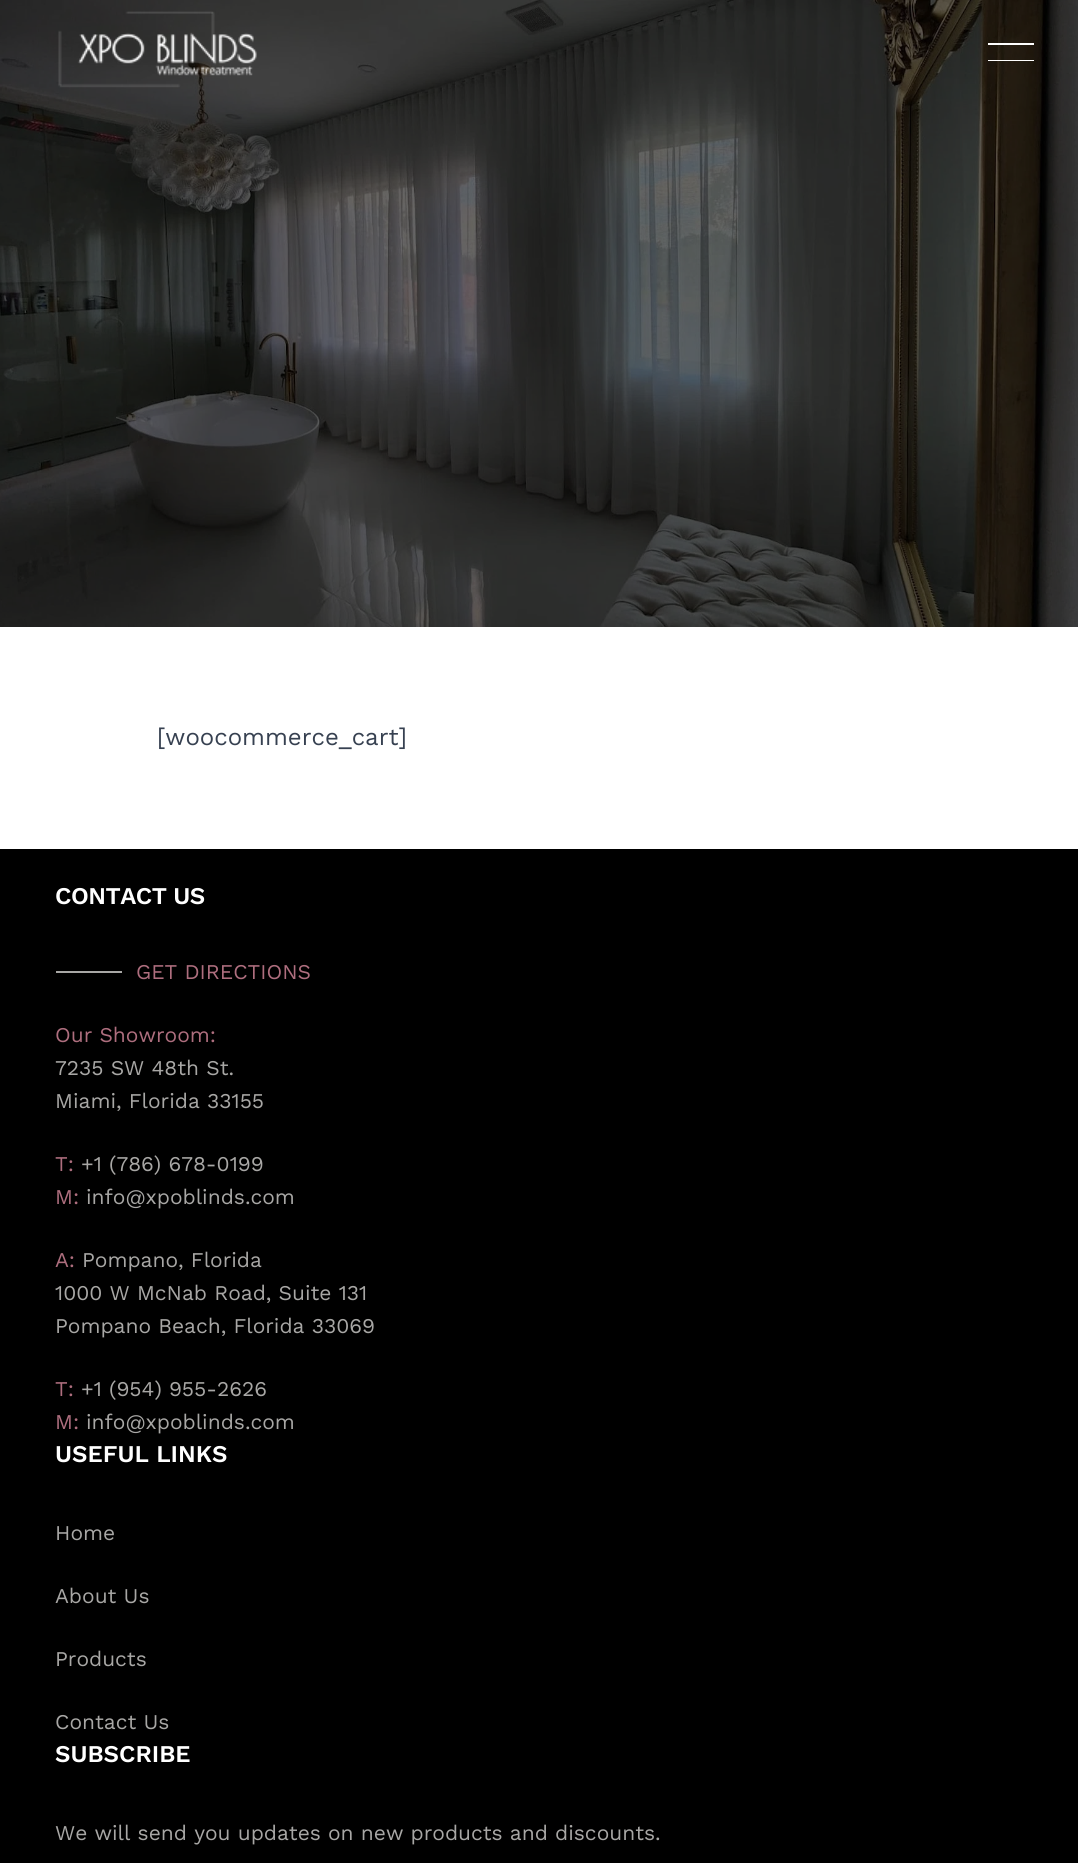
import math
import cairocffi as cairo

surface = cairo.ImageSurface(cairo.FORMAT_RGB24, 1078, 1863)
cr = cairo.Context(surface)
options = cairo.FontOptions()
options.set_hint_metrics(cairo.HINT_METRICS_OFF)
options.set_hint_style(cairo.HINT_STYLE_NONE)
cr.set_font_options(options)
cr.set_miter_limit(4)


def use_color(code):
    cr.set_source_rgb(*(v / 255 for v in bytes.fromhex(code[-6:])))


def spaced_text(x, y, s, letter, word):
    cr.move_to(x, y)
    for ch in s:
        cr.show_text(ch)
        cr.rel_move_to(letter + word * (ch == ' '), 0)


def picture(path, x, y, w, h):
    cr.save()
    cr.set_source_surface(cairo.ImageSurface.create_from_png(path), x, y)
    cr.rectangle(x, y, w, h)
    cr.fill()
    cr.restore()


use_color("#ffffff")
cr.paint()
picture("img2.png", 0, 0, 1078, 627)
picture("img1.png", 58, 11, 199, 77)
use_color("#ffffff")
cr.new_path()
cr.move_to(988, 43)
cr.line_to(1034, 43)
cr.line_to(1034, 45)
cr.line_to(988, 45)
cr.close_path()
cr.move_to(988, 60)
cr.line_to(1034, 60)
cr.line_to(1034, 61)
cr.line_to(988, 61)
cr.close_path()
cr.fill()
cr.select_font_face("Work Sans")
cr.set_font_size(24)
use_color("#374151")
cr.move_to(157, 745)
cr.show_text("[woocommerce_cart]")
use_color("#000000")
cr.rectangle(0, 849, 1078, 1014)
cr.fill()
cr.select_font_face("Work Sans SemiBold")
use_color("#ffffff")
spaced_text(55, 904, "CONTACT US", -0.5, 0)
use_color("#a8a7a5")
cr.rectangle(56, 971, 66, 2)
cr.fill()
cr.select_font_face("Work Sans")
cr.set_font_size(21)
use_color("#ae6e7e")
cr.move_to(136, 979)
cr.show_text("GET DIRECTIONS")
cr.move_to(55, 1042)
cr.show_text("Our Showroom:")
use_color("#a8a7a5")
cr.move_to(55, 1075)
cr.show_text("7235 SW 48th St.")
cr.move_to(55, 1108)
cr.show_text("Miami, Florida 33155")
use_color("#ae6e7e")
cr.move_to(55, 1171)
cr.show_text("T:")
use_color("#a8a7a5")
cr.move_to(81, 1171)
cr.show_text("+1 (786) 678-0199")
use_color("#ae6e7e")
cr.move_to(55, 1204)
cr.show_text("M:")
use_color("#a8a7a5")
cr.move_to(86, 1204)
cr.show_text("info@xpoblinds.com")
use_color("#ae6e7e")
cr.move_to(55, 1267)
cr.show_text("A:")
use_color("#a8a7a5")
cr.move_to(82, 1267)
cr.show_text("Pompano, Florida")
cr.move_to(55, 1300)
cr.show_text("1000 W McNab Road, Suite 131")
cr.move_to(55, 1333)
cr.show_text("Pompano Beach, Florida 33069")
use_color("#ae6e7e")
cr.move_to(55, 1396)
cr.show_text("T:")
use_color("#a8a7a5")
cr.move_to(81, 1396)
cr.show_text("+1 (954) 955-2626")
use_color("#ae6e7e")
cr.move_to(55, 1429)
cr.show_text("M:")
use_color("#a8a7a5")
cr.move_to(86, 1429)
cr.show_text("info@xpoblinds.com")
cr.select_font_face("Work Sans SemiBold")
cr.set_font_size(24)
use_color("#ffffff")
cr.move_to(55, 1462)
cr.show_text("USEFUL LINKS")
cr.select_font_face("Work Sans")
cr.set_font_size(21)
use_color("#a8a7a5")
cr.move_to(55, 1540)
cr.show_text("Home")
cr.move_to(55, 1603)
cr.show_text("About Us")
cr.move_to(55, 1666)
cr.show_text("Products")
cr.move_to(55, 1729)
cr.show_text("Contact Us")
cr.select_font_face("Work Sans SemiBold")
cr.set_font_size(24)
use_color("#ffffff")
cr.move_to(55, 1762)
cr.show_text("SUBSCRIBE")
cr.select_font_face("Work Sans")
cr.set_font_size(21)
use_color("#a8a7a5")
cr.move_to(55, 1840)
cr.show_text("We will send you updates on new products and discounts.")
surface.write_to_png("result.png")
